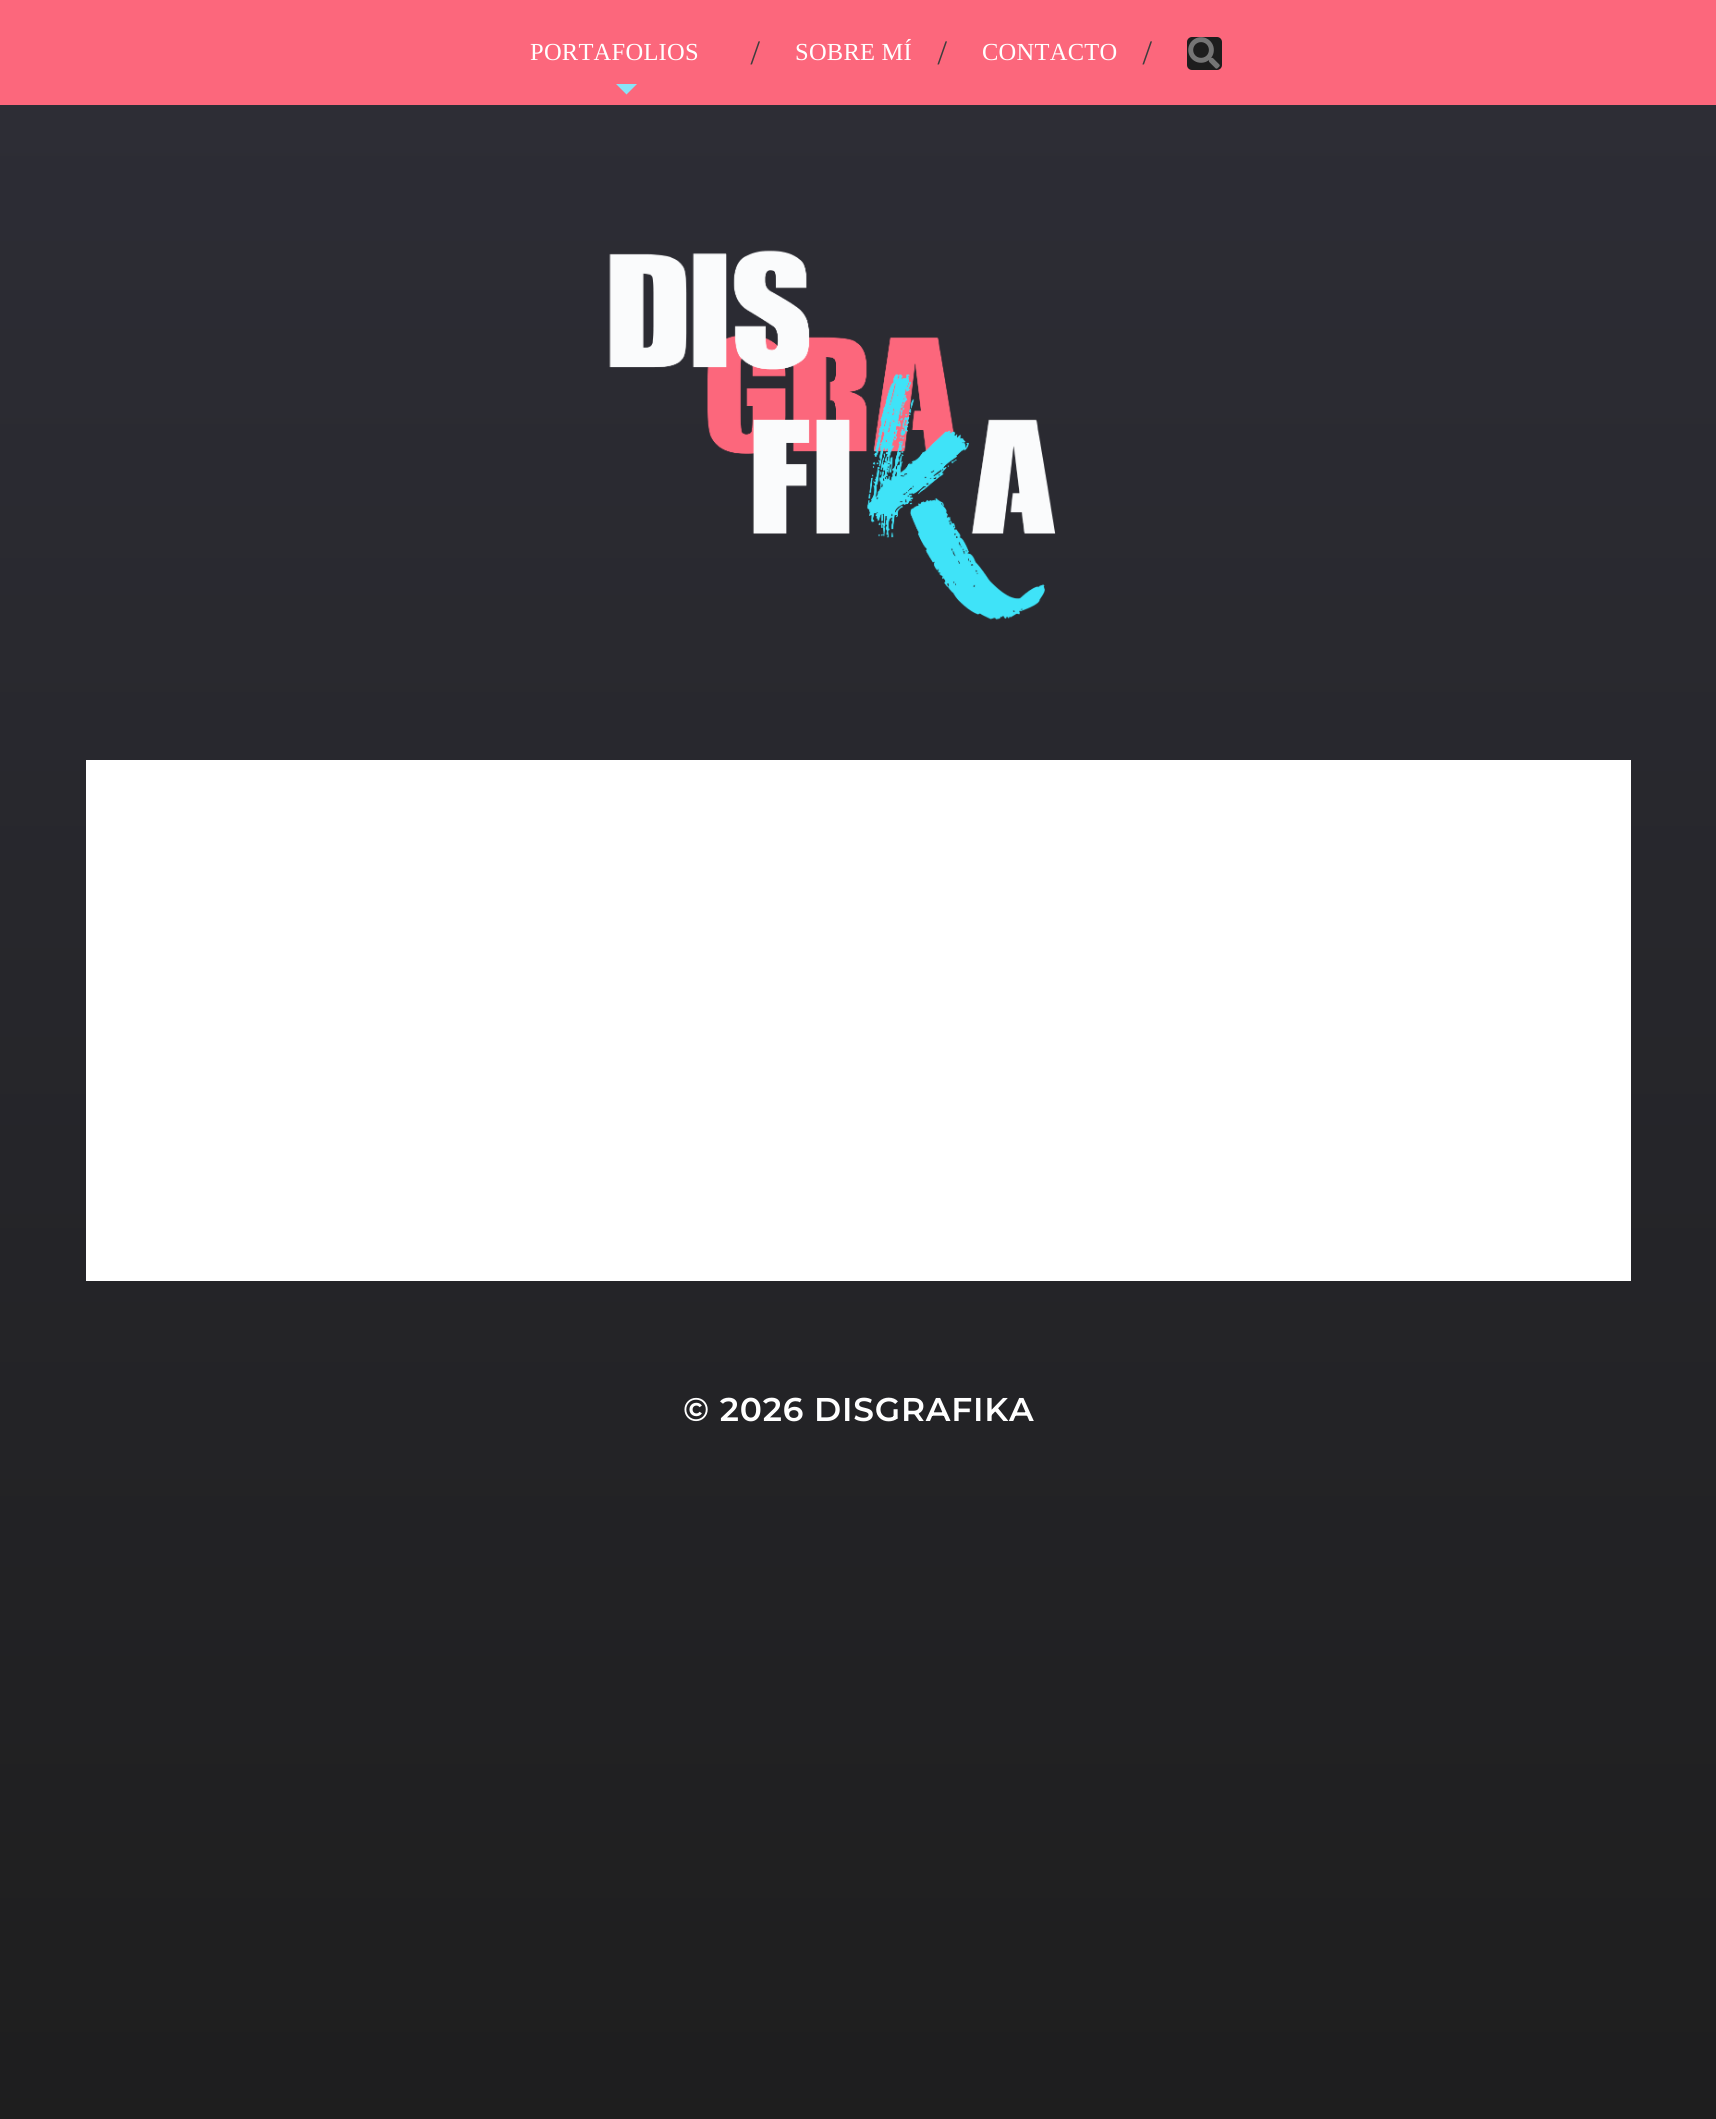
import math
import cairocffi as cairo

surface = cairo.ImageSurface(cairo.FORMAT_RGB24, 1716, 2119)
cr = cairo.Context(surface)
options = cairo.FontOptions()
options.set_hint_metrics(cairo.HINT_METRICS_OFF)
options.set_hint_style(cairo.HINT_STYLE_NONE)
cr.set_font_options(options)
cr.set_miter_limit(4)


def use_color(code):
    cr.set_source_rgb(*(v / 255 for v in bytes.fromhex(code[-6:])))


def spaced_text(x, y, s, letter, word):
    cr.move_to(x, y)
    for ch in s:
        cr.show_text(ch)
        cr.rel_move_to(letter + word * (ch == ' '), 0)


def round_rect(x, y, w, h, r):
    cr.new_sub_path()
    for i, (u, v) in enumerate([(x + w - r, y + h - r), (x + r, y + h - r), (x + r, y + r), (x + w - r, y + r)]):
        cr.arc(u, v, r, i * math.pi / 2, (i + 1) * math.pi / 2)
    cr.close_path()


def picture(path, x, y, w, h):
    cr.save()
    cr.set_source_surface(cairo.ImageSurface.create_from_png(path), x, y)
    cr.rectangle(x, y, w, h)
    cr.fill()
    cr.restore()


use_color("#fc677c")
cr.paint()
cr.select_font_face("Liberation Serif")
cr.set_font_size(24.5)
use_color("#ffffff")
spaced_text(530, 60, "PORTAFOLIOS", 0.25, 0)
use_color("#89e3f7")
cr.new_path()
cr.move_to(616, 84)
cr.line_to(637, 84)
cr.line_to(626.5, 94.5)
cr.close_path()
cr.fill()
cr.select_font_face("Montserrat Thin")
use_color("#3d3d3d")
cr.move_to(751, 62)
cr.show_text("/")
cr.select_font_face("Liberation Serif")
use_color("#ffffff")
spaced_text(795, 60, "SOBRE MÍ", 0.25, 0)
cr.select_font_face("Montserrat Thin")
use_color("#3d3d3d")
cr.move_to(938, 62)
cr.show_text("/")
cr.select_font_face("Liberation Serif")
use_color("#ffffff")
spaced_text(982, 60, "CONTACTO", 0.25, 0)
cr.select_font_face("Montserrat Thin")
use_color("#3d3d3d")
cr.move_to(1143, 62)
cr.show_text("/")
use_color("#1d1d1d")
round_rect(1187, 37, 35, 33, 5)
cr.fill()
picture("img1.png", 1188, 37, 32, 32)
gradient = cairo.LinearGradient(858, 105, 858, 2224)
gradient.add_color_stop_rgba(0, 0.176, 0.176, 0.208, 1)
gradient.add_color_stop_rgba(1, 0.114, 0.114, 0.114, 1)
cr.set_source(gradient)
cr.rectangle(0, 105, 1716, 2014)
cr.fill()
picture("img2.png", 609, 250, 447, 370)
use_color("#ffffff")
cr.rectangle(86, 760, 1545, 521)
cr.fill()
cr.select_font_face("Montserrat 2 Thin")
cr.set_font_size(32.9)
spaced_text(683, 1421, "© 2026 DISGRAFIKA", 0.8, 0)
surface.write_to_png("result.png")
